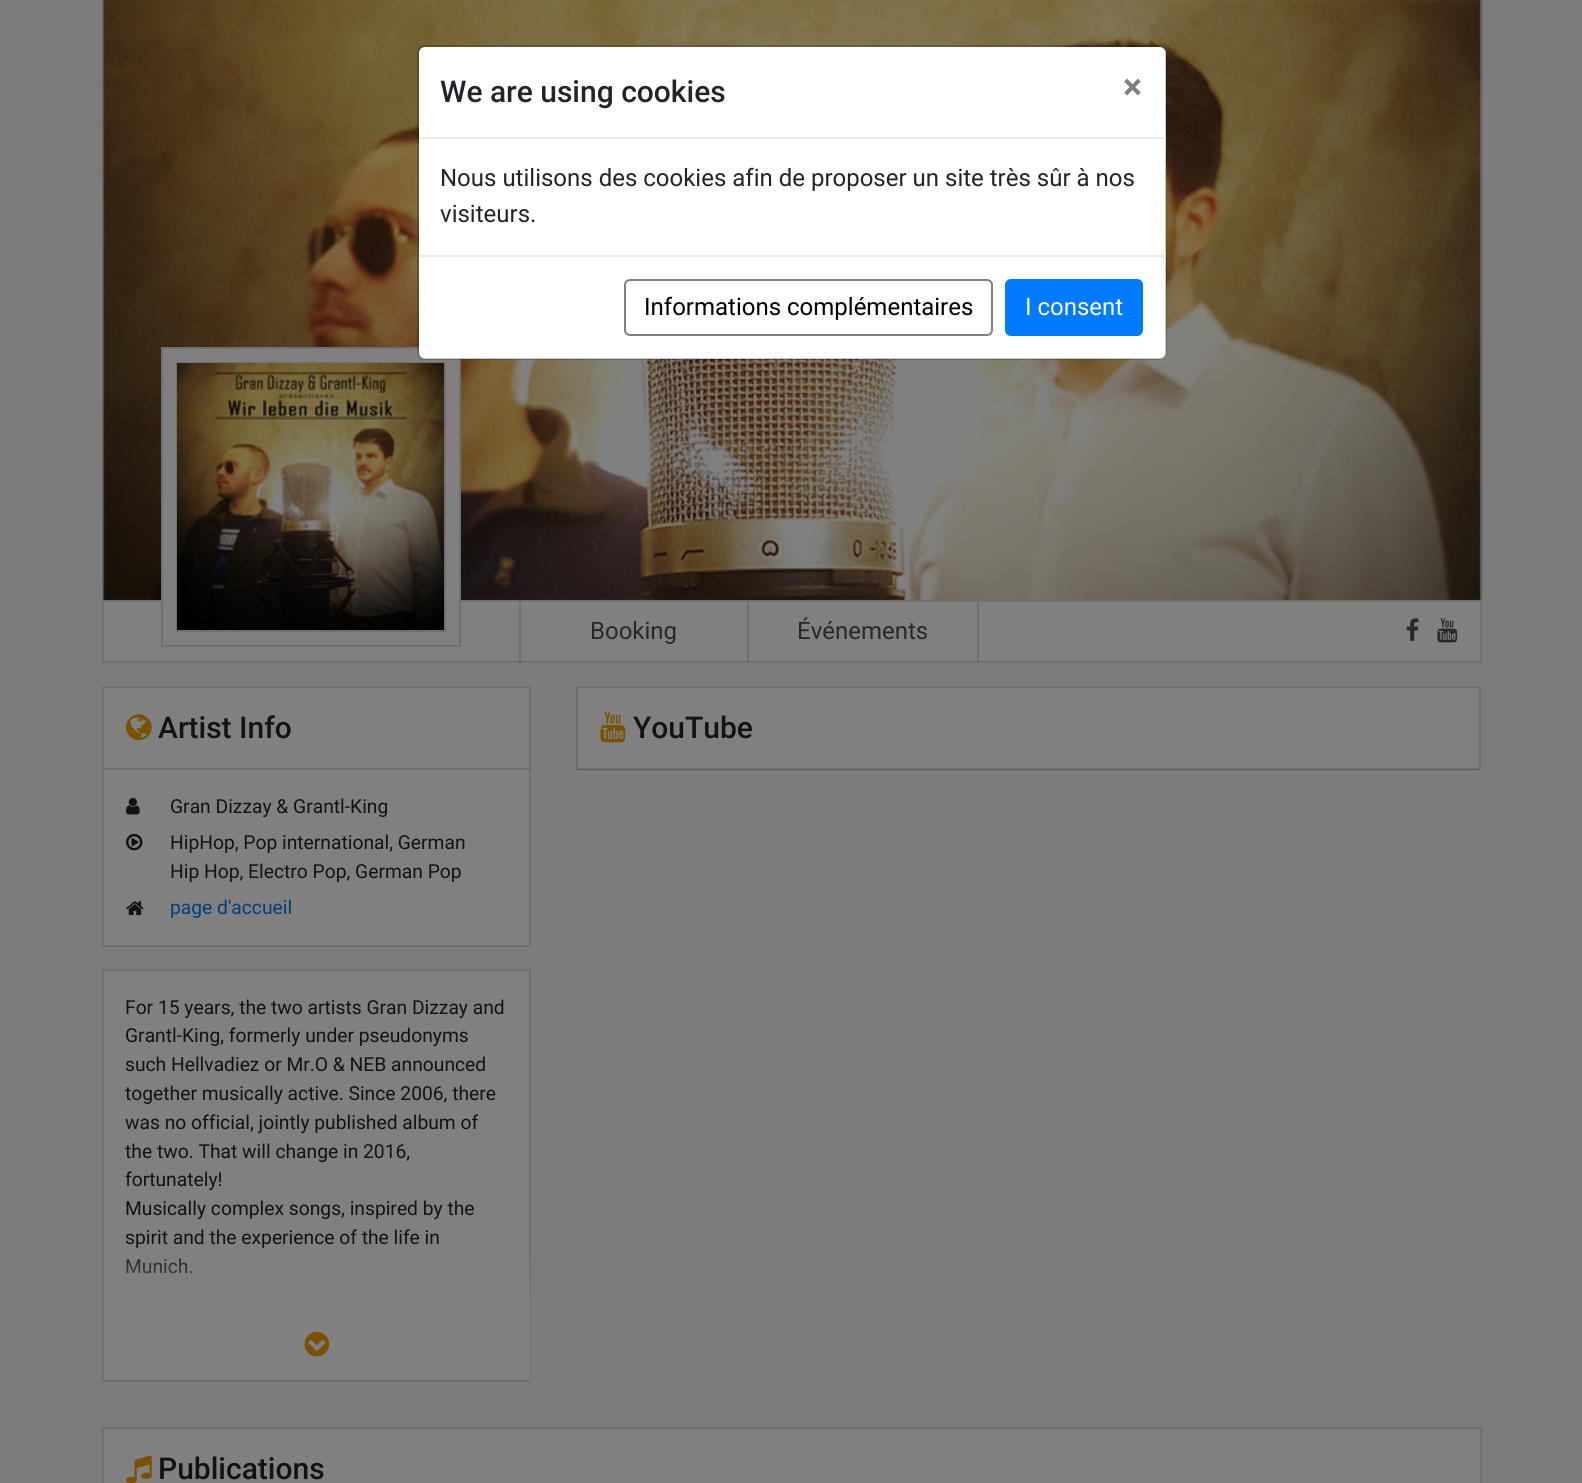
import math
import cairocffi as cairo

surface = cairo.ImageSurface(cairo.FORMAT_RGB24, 1582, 1483)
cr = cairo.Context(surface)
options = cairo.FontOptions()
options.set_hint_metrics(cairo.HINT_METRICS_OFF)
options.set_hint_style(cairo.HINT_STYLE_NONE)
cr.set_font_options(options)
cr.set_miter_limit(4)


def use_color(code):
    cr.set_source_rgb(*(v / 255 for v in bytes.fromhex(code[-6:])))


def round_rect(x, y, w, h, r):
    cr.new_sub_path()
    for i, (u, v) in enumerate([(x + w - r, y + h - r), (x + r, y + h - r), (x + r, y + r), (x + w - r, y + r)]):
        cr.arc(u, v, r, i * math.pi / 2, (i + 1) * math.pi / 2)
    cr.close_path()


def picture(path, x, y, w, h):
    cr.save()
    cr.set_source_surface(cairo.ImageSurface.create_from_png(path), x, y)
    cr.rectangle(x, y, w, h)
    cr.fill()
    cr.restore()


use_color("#7c7c7c")
cr.paint()
use_color("#6c6c6c")
cr.rectangle(102, 0, 2, 600)
cr.fill()
picture("img1.png", 103, 0, 1378, 600)
use_color("#808080")
cr.rectangle(103, 601, 1378, 61)
cr.fill_preserve()
use_color("#707070")
cr.stroke()
use_color("#808080")
cr.rectangle(163, 349, 296, 253)
cr.fill()
cr.rectangle(162, 348, 298, 298)
use_color("#707070")
cr.stroke()
use_color("#ffffff")
round_rect(419, 47, 747, 312, 6)
cr.fill()
round_rect(418, 46, 748, 313, 7)
cr.set_source_rgba(0, 0, 0, 0.2)
cr.stroke()
use_color("#e9ecef")
cr.rectangle(419, 137, 747, 2)
cr.fill()
cr.select_font_face("Roboto Medium")
cr.set_font_size(30)
use_color("#212529")
cr.move_to(440, 102)
cr.show_text("We are using cookies")
cr.select_font_face("Roboto", cairo.FONT_SLANT_NORMAL, cairo.FONT_WEIGHT_BOLD)
cr.set_font_size(36)
use_color("#808080")
cr.move_to(1123, 99)
cr.show_text("×")
cr.select_font_face("Roboto")
cr.set_font_size(24)
use_color("#212529")
cr.move_to(440, 186)
cr.show_text("Nous utilisons des cookies afin de proposer un site très sûr à nos")
cr.move_to(440, 222)
cr.show_text("visiteurs.")
use_color("#e9ecef")
cr.rectangle(419, 255, 747, 2)
cr.fill()
round_rect(625, 280, 367, 55, 5)
use_color("#808080")
cr.stroke()
use_color("#000000")
cr.move_to(644, 315)
cr.show_text("Informations complémentaires")
use_color("#007bff")
round_rect(1006, 280, 136, 55, 5)
cr.fill_preserve()
cr.stroke()
use_color("#ffffff")
cr.move_to(1025, 315)
cr.show_text("I consent")
use_color("#6c6c6c")
cr.rectangle(1481, 0, 2, 600)
cr.fill()
cr.rectangle(177, 363, 268, 268)
use_color("#707070")
cr.stroke()
picture("img2.png", 177, 363, 267, 267)
cr.set_source_rgba(0, 0, 0, 0.12)
cr.rectangle(747, 602, 2, 60)
cr.fill()
cr.rectangle(519, 602, 2, 60)
cr.fill()
use_color("#282828")
cr.move_to(590, 639)
cr.show_text("Booking")
cr.set_source_rgba(0, 0, 0, 0.12)
cr.rectangle(977, 602, 2, 60)
cr.fill()
use_color("#282828")
cr.move_to(797, 639)
cr.show_text("Événements")
picture("img3.png", 1406, 618, 13, 23)
picture("img4.png", 1437, 618, 21, 25)
use_color("#808080")
cr.rectangle(103, 687, 427, 259)
cr.fill_preserve()
use_color("#707070")
cr.stroke()
picture("img5.png", 126, 714, 26, 27)
cr.select_font_face("Roboto Medium")
cr.set_font_size(30)
use_color("#111315")
cr.move_to(158, 738)
cr.show_text("Artist Info")
cr.set_source_rgba(0, 0, 0, 0.12)
cr.rectangle(104, 768, 426, 2)
cr.fill()
picture("img6.png", 126, 797, 14, 18)
cr.select_font_face("Roboto")
cr.set_font_size(19.25)
use_color("#111315")
cr.move_to(170, 813)
cr.show_text("Gran Dizzay & Grantl-King")
picture("img7.png", 126, 833, 17, 18)
cr.move_to(170, 849)
cr.show_text("HipHop, Pop international, German")
cr.move_to(170, 878)
cr.show_text("Hip Hop, Electro Pop, German Pop")
picture("img8.png", 126, 901, 18, 14)
use_color("#003e80")
cr.move_to(170, 914)
cr.show_text("page d'accueil")
use_color("#808080")
cr.rectangle(104, 971, 425, 349)
cr.fill()
cr.rectangle(103, 970, 427, 411)
use_color("#707070")
cr.stroke()
use_color("#111315")
cr.move_to(125, 1014)
cr.show_text("For 15 years, the two artists Gran Dizzay and")
cr.move_to(125, 1042)
cr.show_text("Grantl-King, formerly under pseudonyms")
cr.move_to(125, 1071)
cr.show_text("such Hellvadiez or Mr.O & NEB announced")
cr.move_to(125, 1100)
cr.show_text("together musically active. Since 2006, there")
cr.move_to(125, 1129)
cr.show_text("was no official, jointly published album of")
cr.move_to(125, 1158)
cr.show_text("the two. That will change in 2016,")
cr.move_to(125, 1186)
cr.show_text("fortunately!")
cr.move_to(125, 1215)
cr.show_text("Musically complex songs, inspired by the")
cr.move_to(125, 1244)
cr.show_text("spirit and the experience of the life in")
cr.move_to(125, 1273)
cr.show_text("Munich.")
gradient = cairo.LinearGradient(317, 1380, 317, 1230)
gradient.add_color_stop_rgba(0.4, 0.502, 0.502, 0.502, 1)
gradient.add_color_stop_rgba(0.9, 0.502, 0.502, 0.502, 0)
cr.set_source(gradient)
cr.rectangle(104, 1247, 426, 133)
cr.fill()
picture("img9.png", 304, 1331, 26, 26)
use_color("#808080")
cr.rectangle(577, 687, 903, 83)
cr.fill_preserve()
use_color("#707070")
cr.stroke()
picture("img10.png", 600, 712, 26, 31)
cr.select_font_face("Roboto Medium")
cr.set_font_size(30)
use_color("#111315")
cr.move_to(633, 738)
cr.show_text("YouTube")
cr.set_source_rgba(0, 0, 0, 0.12)
cr.rectangle(578, 768, 901, 2)
cr.fill()
use_color("#808080")
cr.rectangle(103, 1428, 1378, 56)
cr.fill_preserve()
use_color("#707070")
cr.stroke()
picture("img11.png", 126, 1455, 26, 28)
use_color("#111315")
cr.move_to(158, 1479)
cr.show_text("Publications")
surface.write_to_png("result.png")
